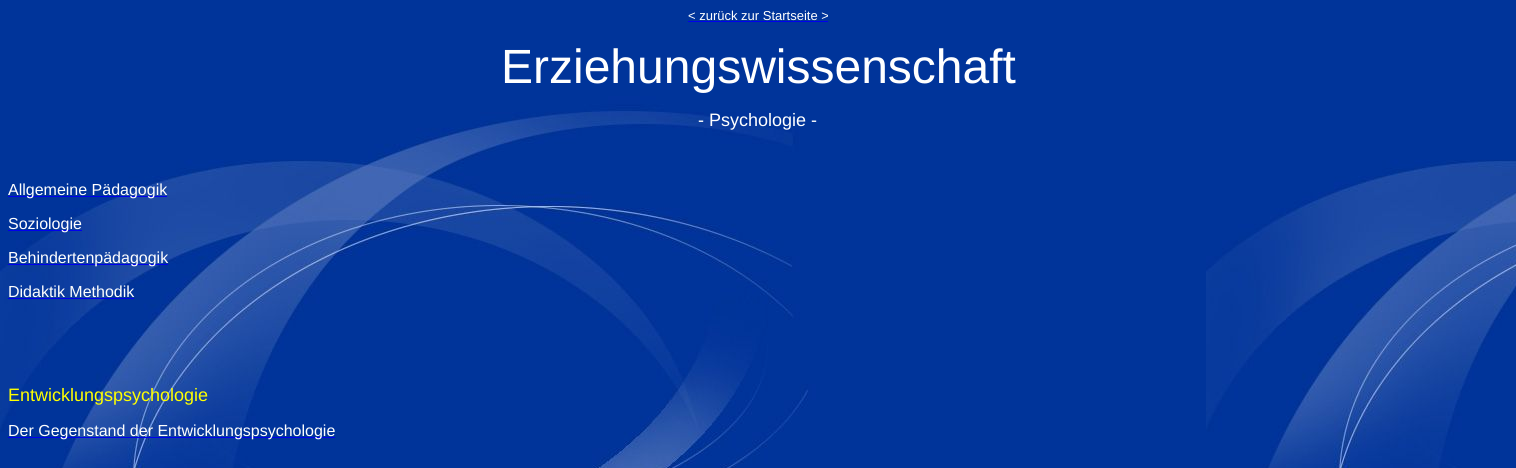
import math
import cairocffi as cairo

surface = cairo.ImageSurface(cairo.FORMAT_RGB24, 1516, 468)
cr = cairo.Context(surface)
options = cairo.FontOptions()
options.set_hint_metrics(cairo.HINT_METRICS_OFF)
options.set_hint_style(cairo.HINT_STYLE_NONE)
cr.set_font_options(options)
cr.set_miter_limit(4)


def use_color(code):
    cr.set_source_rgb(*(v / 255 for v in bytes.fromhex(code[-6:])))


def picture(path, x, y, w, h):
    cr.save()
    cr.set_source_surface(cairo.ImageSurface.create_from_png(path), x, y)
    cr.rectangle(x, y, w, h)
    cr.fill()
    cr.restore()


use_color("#ffffff")
cr.paint()
picture("img1.png", 0, 0, 1516, 468)
cr.select_font_face("Liberation Sans")
cr.set_font_size(13)
use_color("#ffffff")
cr.move_to(688, 20)
cr.show_text("< zurück zur Startseite >")
use_color("#0000ee")
cr.rectangle(688, 21, 140, 1)
cr.fill()
cr.set_font_size(48)
use_color("#ffffff")
cr.move_to(501, 83)
cr.show_text("Erziehungswissenschaft")
cr.set_font_size(18)
cr.move_to(698, 126)
cr.show_text("- Psychologie -")
use_color("#0000ee")
cr.rectangle(8, 196, 159, 1)
cr.fill()
cr.set_font_size(16)
use_color("#ffffff")
cr.move_to(8, 195)
cr.show_text("Allgemeine Pädagogik")
use_color("#0000ee")
cr.rectangle(8, 230, 74, 1)
cr.fill()
use_color("#ffffff")
cr.move_to(8, 229)
cr.show_text("Soziologie")
use_color("#0000ee")
cr.rectangle(8, 264, 160, 1)
cr.fill()
use_color("#ffffff")
cr.move_to(8, 263)
cr.show_text("Behindertenpädagogik")
cr.move_to(8, 297)
cr.show_text("Didaktik Methodik")
use_color("#0000ee")
cr.rectangle(8, 298, 126, 1)
cr.fill()
cr.set_font_size(18)
use_color("#ffff00")
cr.move_to(8, 401)
cr.show_text("Entwicklungspsychologie")
use_color("#0000ee")
cr.rectangle(8, 437, 327, 1)
cr.fill()
cr.set_font_size(16)
use_color("#ffffff")
cr.move_to(8, 436)
cr.show_text("Der Gegenstand der Entwicklungspsychologie")
surface.write_to_png("result.png")
